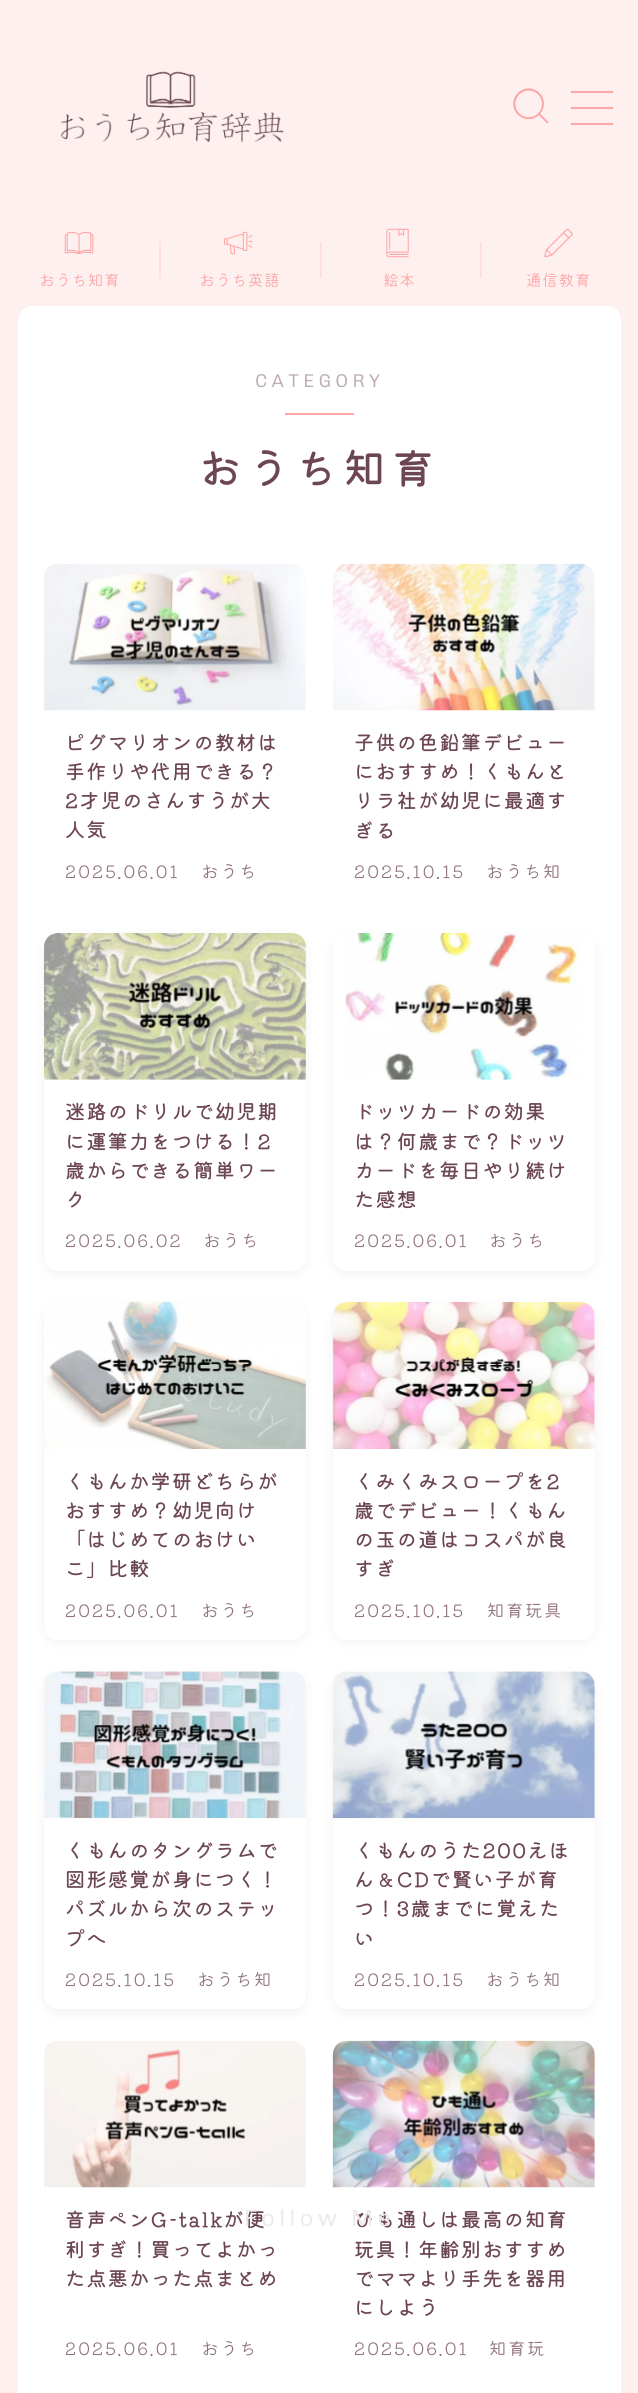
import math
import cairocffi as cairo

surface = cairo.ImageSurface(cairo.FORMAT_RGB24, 638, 2393)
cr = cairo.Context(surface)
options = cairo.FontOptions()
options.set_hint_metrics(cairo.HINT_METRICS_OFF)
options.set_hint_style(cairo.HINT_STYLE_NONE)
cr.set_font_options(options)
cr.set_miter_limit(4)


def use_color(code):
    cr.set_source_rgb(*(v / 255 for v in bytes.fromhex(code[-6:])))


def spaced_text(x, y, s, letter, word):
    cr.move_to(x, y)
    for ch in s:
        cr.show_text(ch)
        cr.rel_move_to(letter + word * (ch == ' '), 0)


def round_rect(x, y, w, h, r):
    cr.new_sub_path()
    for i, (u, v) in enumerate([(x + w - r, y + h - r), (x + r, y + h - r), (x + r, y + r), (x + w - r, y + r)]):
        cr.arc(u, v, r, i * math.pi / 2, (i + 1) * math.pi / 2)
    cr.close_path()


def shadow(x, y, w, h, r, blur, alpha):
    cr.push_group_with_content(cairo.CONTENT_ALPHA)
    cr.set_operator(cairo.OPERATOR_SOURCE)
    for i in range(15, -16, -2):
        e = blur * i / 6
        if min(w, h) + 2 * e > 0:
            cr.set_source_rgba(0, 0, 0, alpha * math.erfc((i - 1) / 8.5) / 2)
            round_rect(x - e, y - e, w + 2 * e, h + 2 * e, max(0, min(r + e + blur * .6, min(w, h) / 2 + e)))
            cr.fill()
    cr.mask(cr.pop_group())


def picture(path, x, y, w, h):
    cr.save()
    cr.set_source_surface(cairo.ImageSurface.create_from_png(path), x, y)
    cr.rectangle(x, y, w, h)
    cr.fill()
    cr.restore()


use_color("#fff0f0")
cr.paint()
picture("img1.png", 64, 231, 30, 23)
cr.select_font_face("Kiwi Maru Light")
cr.set_font_size(15.75)
use_color("#fda6a6")
spaced_text(39, 286, "おうち知育", 0.5, 0)
use_color("#ffe0e0")
cr.rectangle(159, 242, 2, 36)
cr.fill()
picture("img2.png", 224, 231, 29, 24)
use_color("#fda6a6")
spaced_text(199, 286, "おうち英語", 0.5, 0)
use_color("#ffe0e0")
cr.rectangle(320, 242, 2, 36)
cr.fill()
picture("img3.png", 386, 228, 23, 30)
use_color("#fda6a6")
spaced_text(383, 286, "絵本", 0.5, 0)
use_color("#ffe0e0")
cr.rectangle(480, 242, 2, 36)
cr.fill()
picture("img4.png", 544, 228, 29, 30)
use_color("#fda6a6")
spaced_text(526, 286, "通信教育", 0.5, 0)
picture("img5.png", 61, 71, 223, 72)
picture("img6.png", 513, 88, 36, 36)
cr.rectangle(571, 91, 42, 2)
cr.fill()
cr.rectangle(571, 107, 42, 2)
cr.fill()
cr.rectangle(571, 123, 42, 2)
cr.fill()
use_color("#ffffff")
round_rect(18, 306, 603, 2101, 14)
cr.fill()
cr.select_font_face("Kiwi Maru Medium")
cr.set_font_size(20.1)
use_color("#6d4655")
spaced_text(65, 2227, "音声ペンG-talkが便", 1.3, 0)
spaced_text(354, 2227, "ひも通しは最高の知育", 1.3, 0)
cr.select_font_face("Chivo Light")
cr.set_font_size(23.5)
use_color("#ede9eb")
spaced_text(244, 2226, "Follow Me", 4.25, 0)
cr.set_font_size(18.5)
use_color("#bdacb3")
spaced_text(255, 387, "CATEGORY", 4.25, 0)
use_color("#fda6a6")
cr.rectangle(285, 413, 69, 2)
cr.fill()
cr.select_font_face("Kiwi Maru Medium")
cr.set_font_size(42)
use_color("#6d4655")
spaced_text(199, 484, "おうち知育", 6.25, 0)
picture("img7.png", 44, 564, 262, 147)
cr.set_font_size(20.1)
spaced_text(65, 750, "ピグマリオンの教材は", 1.3, 0)
spaced_text(65, 779, "手作りや代用できる？", 1.3, 0)
spaced_text(65, 808, "2才児のさんすうが大", 1.3, 0)
spaced_text(65, 837, "人気", 1.3, 0)
cr.select_font_face("Kiwi Maru Light")
cr.set_font_size(17.5)
use_color("#927480")
spaced_text(65, 878, "2025.06.01", 2.1, 0)
spaced_text(201, 878, "おうち", 1.5, 0)
picture("img8.png", 332, 563, 263, 148)
cr.select_font_face("Kiwi Maru Medium")
cr.set_font_size(20.1)
use_color("#6d4655")
spaced_text(354, 750, "子供の色鉛筆デビュー", 1.3, 0)
spaced_text(354, 779, "におすすめ！くもんと", 1.3, 0)
spaced_text(354, 808, "リラ社が幼児に最適す", 1.3, 0)
spaced_text(354, 838, "ぎる", 1.3, 0)
cr.select_font_face("Kiwi Maru Light")
cr.set_font_size(17.5)
use_color("#927480")
spaced_text(354, 878, "2025.10.15", 2.1, 0)
spaced_text(486, 878, "おうち知", 1.5, 0)
use_color("#aaaaaa")
shadow(44, 936, 262, 338, 14, 5, 0.15)
use_color("#ffffff")
round_rect(44, 933, 262, 338, 14)
cr.fill()
picture("img9.png", 44, 933, 262, 147)
cr.select_font_face("Kiwi Maru Medium")
cr.set_font_size(20.1)
use_color("#6d4655")
spaced_text(65, 1119, "迷路のドリルで幼児期", 1.3, 0)
spaced_text(65, 1149, "に運筆力をつける！2", 1.3, 0)
spaced_text(65, 1178, "歳からできる簡単ワー", 1.3, 0)
spaced_text(65, 1207, "ク", 1.3, 0)
cr.select_font_face("Kiwi Maru Light")
cr.set_font_size(17.5)
use_color("#927480")
spaced_text(65, 1247, "2025.06.02", 2.1, 0)
spaced_text(203, 1247, "おうち", 1.5, 0)
use_color("#aaaaaa")
shadow(333, 936, 262, 338, 14, 5, 0.15)
use_color("#ffffff")
round_rect(333, 933, 262, 338, 14)
cr.fill()
picture("img10.png", 345, 933, 234, 147)
cr.select_font_face("Kiwi Maru Medium")
cr.set_font_size(20.1)
use_color("#6d4655")
spaced_text(354, 1119, "ドッツカードの効果", 1.3, 0)
spaced_text(354, 1149, "は？何歳まで？ドッツ", 1.3, 0)
spaced_text(354, 1178, "カードを毎日やり続け", 1.3, 0)
spaced_text(354, 1207, "た感想", 1.3, 0)
cr.select_font_face("Kiwi Maru Light")
cr.set_font_size(17.5)
use_color("#927480")
spaced_text(354, 1247, "2025.06.01", 2.1, 0)
spaced_text(489, 1247, "おうち", 1.5, 0)
use_color("#aaaaaa")
shadow(44, 1306, 262, 337, 14, 5, 0.15)
use_color("#ffffff")
round_rect(44, 1302, 262, 338, 14)
cr.fill()
picture("img11.png", 44, 1302, 262, 147)
cr.select_font_face("Kiwi Maru Medium")
cr.set_font_size(20.1)
use_color("#6d4655")
spaced_text(65, 1489, "くもんか学研どちらが", 1.3, 0)
spaced_text(65, 1518, "おすすめ？幼児向け", 1.3, 0)
spaced_text(65, 1547, "「はじめてのおけい", 1.3, 0)
spaced_text(65, 1576, "こ」比較", 1.3, 0)
cr.select_font_face("Kiwi Maru Light")
cr.set_font_size(17.5)
use_color("#927480")
spaced_text(65, 1617, "2025.06.01", 2.1, 0)
spaced_text(201, 1617, "おうち", 1.5, 0)
use_color("#aaaaaa")
shadow(333, 1306, 262, 337, 14, 5, 0.15)
use_color("#ffffff")
round_rect(333, 1302, 262, 338, 14)
cr.fill()
picture("img12.png", 332, 1302, 263, 147)
cr.select_font_face("Kiwi Maru Medium")
cr.set_font_size(20.1)
use_color("#6d4655")
spaced_text(354, 1489, "くみくみスロープを2", 1.3, 0)
spaced_text(354, 1518, "歳でデビュー！くもん", 1.3, 0)
spaced_text(354, 1547, "の玉の道はコスパが良", 1.3, 0)
spaced_text(354, 1576, "すぎ", 1.3, 0)
cr.select_font_face("Kiwi Maru Light")
cr.set_font_size(17.5)
use_color("#927480")
spaced_text(354, 1617, "2025.10.15", 2.1, 0)
spaced_text(487, 1617, "知育玩具", 1.5, 0)
use_color("#aaaaaa")
shadow(44, 1675, 262, 338, 14, 5, 0.15)
use_color("#ffffff")
round_rect(44, 1671, 262, 338, 14)
cr.fill()
picture("img13.png", 44, 1671, 262, 148)
cr.select_font_face("Kiwi Maru Medium")
cr.set_font_size(20.1)
use_color("#6d4655")
spaced_text(65, 1858, "くもんのタングラムで", 1.3, 0)
spaced_text(65, 1887, "図形感覚が身につく！", 1.3, 0)
spaced_text(65, 1916, "パズルから次のステッ", 1.3, 0)
spaced_text(65, 1946, "プへ", 1.3, 0)
cr.select_font_face("Kiwi Maru Light")
cr.set_font_size(17.5)
use_color("#927480")
spaced_text(65, 1986, "2025.10.15", 2.1, 0)
spaced_text(197, 1986, "おうち知", 1.5, 0)
use_color("#aaaaaa")
shadow(333, 1675, 262, 338, 14, 5, 0.15)
use_color("#ffffff")
round_rect(333, 1671, 262, 338, 14)
cr.fill()
picture("img14.png", 332, 1671, 263, 148)
cr.select_font_face("Kiwi Maru Medium")
cr.set_font_size(20.1)
use_color("#6d4655")
spaced_text(354, 1858, "くもんのうた200えほ", 1.3, 0)
spaced_text(354, 1887, "ん＆CDで賢い子が育", 1.3, 0)
spaced_text(354, 1916, "つ！3歳までに覚えた", 1.3, 0)
spaced_text(354, 1946, "い", 1.3, 0)
cr.select_font_face("Kiwi Maru Light")
cr.set_font_size(17.5)
use_color("#927480")
spaced_text(354, 1986, "2025.10.15", 2.1, 0)
spaced_text(486, 1986, "おうち知", 1.5, 0)
picture("img15.png", 44, 2041, 262, 147)
cr.select_font_face("Kiwi Maru Medium")
cr.set_font_size(20.1)
use_color("#6d4655")
spaced_text(65, 2257, "利すぎ！買ってよかっ", 1.3, 0)
spaced_text(65, 2286, "た点悪かった点まとめ", 1.3, 0)
cr.select_font_face("Kiwi Maru Light")
cr.set_font_size(17.5)
use_color("#927480")
spaced_text(65, 2355, "2025.06.01", 2.1, 0)
spaced_text(201, 2355, "おうち", 1.5, 0)
picture("img16.png", 332, 2040, 263, 148)
cr.select_font_face("Kiwi Maru Medium")
cr.set_font_size(20.1)
use_color("#6d4655")
spaced_text(354, 2257, "玩具！年齢別おすすめ", 1.3, 0)
spaced_text(354, 2286, "でママより手先を器用", 1.3, 0)
spaced_text(354, 2315, "にしよう", 1.3, 0)
cr.select_font_face("Kiwi Maru Light")
cr.set_font_size(17.5)
use_color("#927480")
spaced_text(354, 2355, "2025.06.01", 2.1, 0)
spaced_text(489, 2355, "知育玩", 1.5, 0)
surface.write_to_png("result.png")
